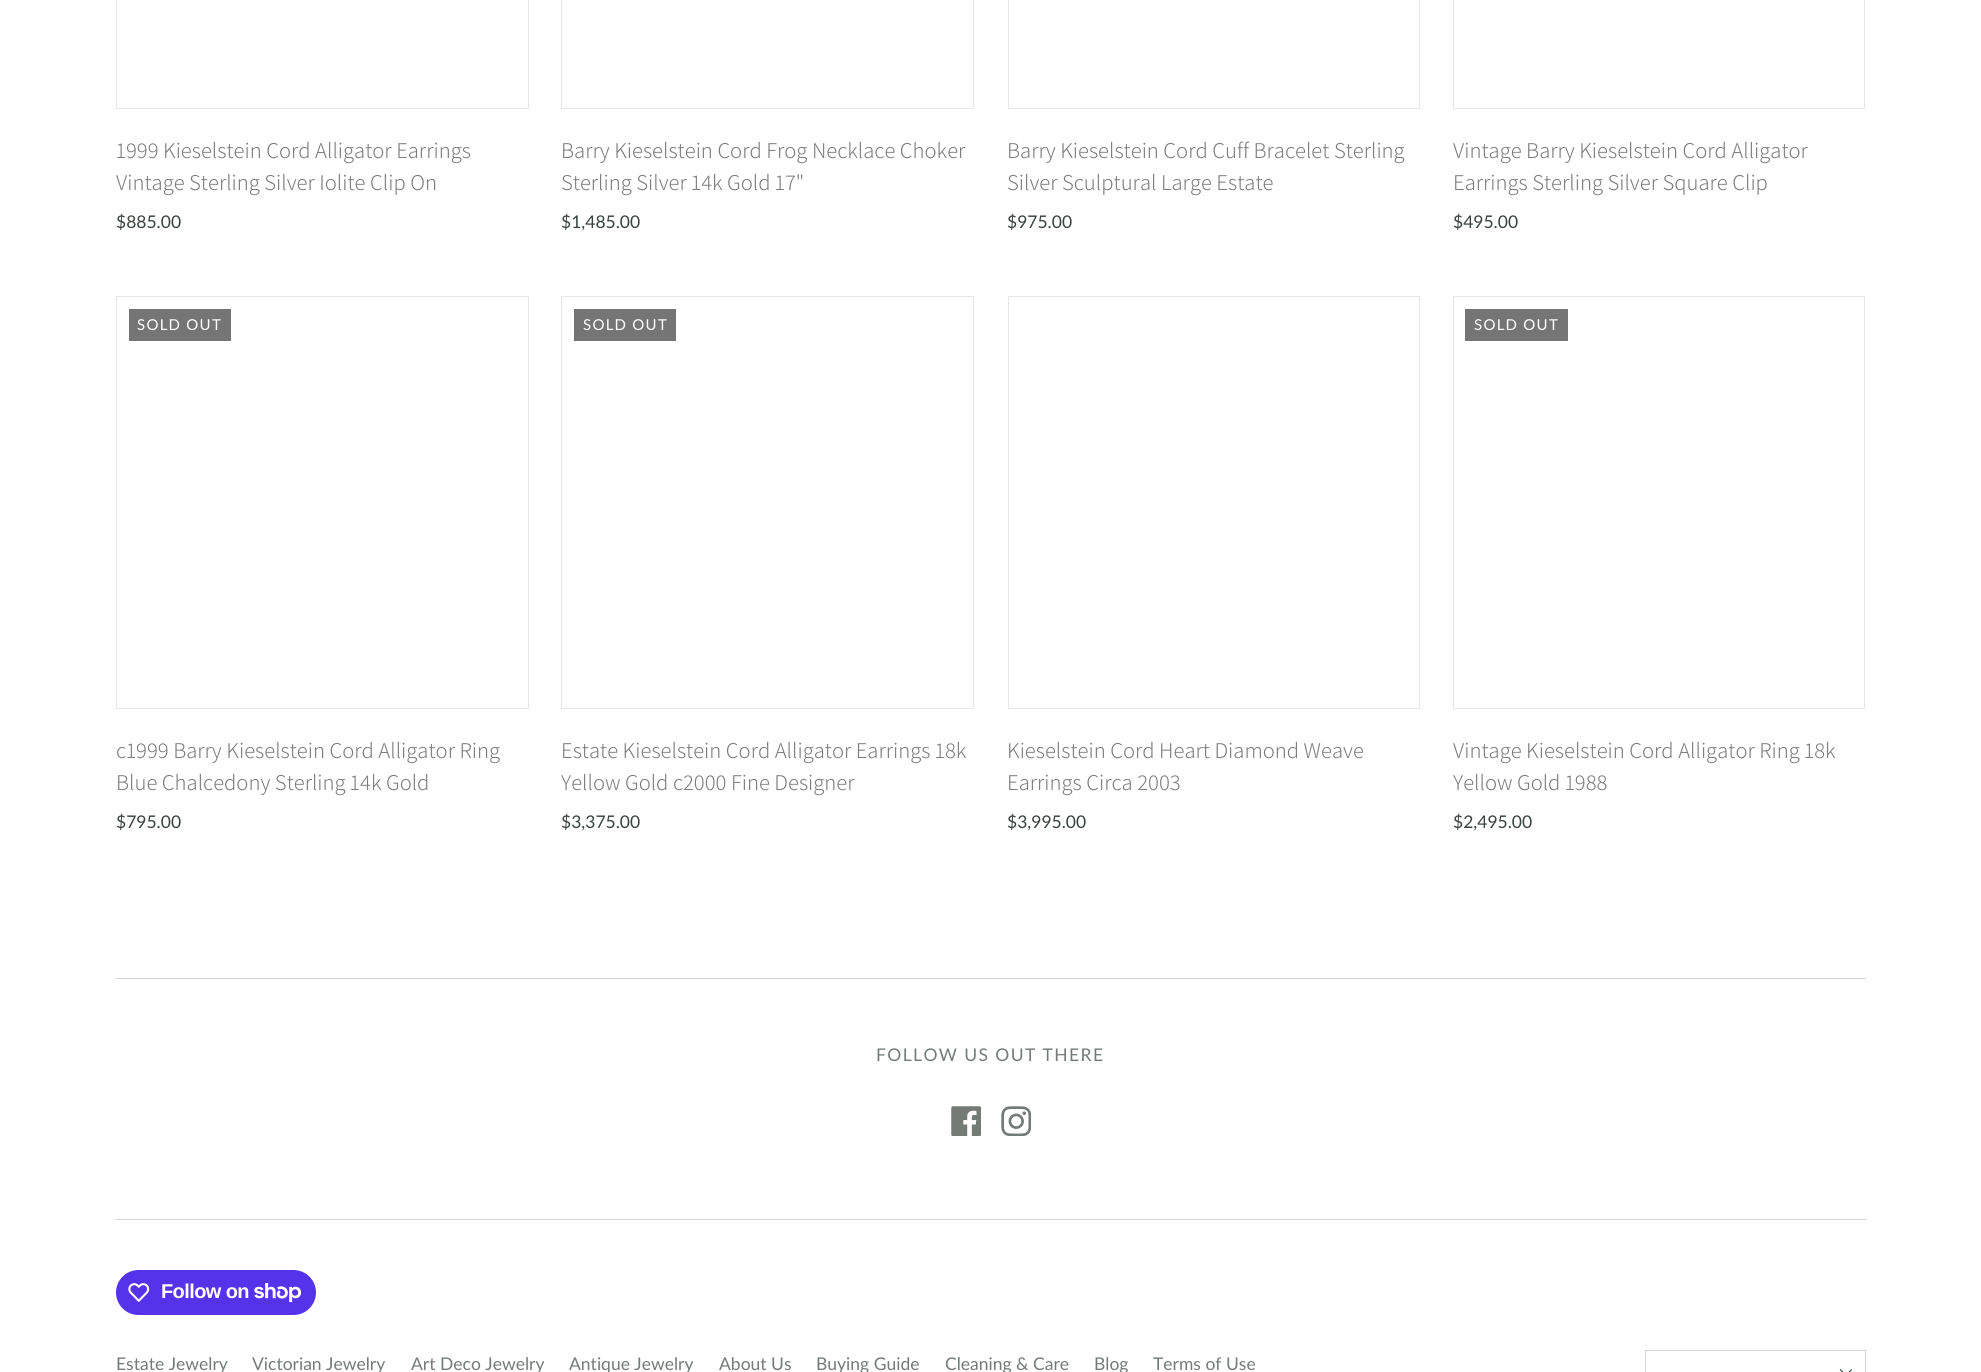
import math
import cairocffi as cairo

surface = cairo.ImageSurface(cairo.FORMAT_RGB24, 1981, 1372)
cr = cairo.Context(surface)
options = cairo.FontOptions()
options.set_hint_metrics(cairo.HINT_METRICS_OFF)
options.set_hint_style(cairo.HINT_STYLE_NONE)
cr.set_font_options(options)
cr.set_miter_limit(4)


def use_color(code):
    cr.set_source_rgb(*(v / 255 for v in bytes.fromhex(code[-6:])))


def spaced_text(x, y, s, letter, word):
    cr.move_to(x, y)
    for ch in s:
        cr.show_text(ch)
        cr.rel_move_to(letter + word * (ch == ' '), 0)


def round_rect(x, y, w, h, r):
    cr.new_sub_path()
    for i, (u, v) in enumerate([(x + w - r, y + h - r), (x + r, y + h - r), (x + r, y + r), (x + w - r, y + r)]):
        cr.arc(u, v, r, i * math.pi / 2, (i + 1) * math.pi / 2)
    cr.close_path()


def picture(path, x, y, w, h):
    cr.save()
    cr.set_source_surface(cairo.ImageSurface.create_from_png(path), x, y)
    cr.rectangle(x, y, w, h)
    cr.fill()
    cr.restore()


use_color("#ffffff")
cr.paint()
cr.rectangle(116.5, -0.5, 412, 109)
use_color("#e6e6e6")
cr.set_line_width(1)
cr.stroke()
cr.select_font_face("Assistant Light")
cr.set_font_size(22.5)
use_color("#7c7c7c")
cr.move_to(116, 158)
cr.show_text("1999 Kieselstein Cord Alligator Earrings")
cr.move_to(116, 190)
cr.show_text("Vintage Sterling Silver Iolite Clip On")
cr.select_font_face("Lato")
cr.set_font_size(17.5)
use_color("#39423d")
cr.move_to(116, 228)
cr.show_text("$885.00")
cr.rectangle(561.5, -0.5, 412, 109)
use_color("#e6e6e6")
cr.stroke()
cr.select_font_face("Assistant Light")
cr.set_font_size(22.5)
use_color("#7c7c7c")
cr.move_to(561, 158)
cr.show_text("Barry Kieselstein Cord Frog Necklace Choker")
cr.move_to(561, 190)
cr.show_text("Sterling Silver 14k Gold 17\"")
cr.select_font_face("Lato")
cr.set_font_size(17.5)
use_color("#39423d")
cr.move_to(561, 228)
cr.show_text("$1,485.00")
cr.rectangle(1008.5, -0.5, 411, 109)
use_color("#e6e6e6")
cr.stroke()
cr.select_font_face("Assistant Light")
cr.set_font_size(22.5)
use_color("#7c7c7c")
cr.move_to(1007, 158)
cr.show_text("Barry Kieselstein Cord Cuff Bracelet Sterling")
cr.move_to(1007, 190)
cr.show_text("Silver Sculptural Large Estate")
cr.select_font_face("Lato")
cr.set_font_size(17.5)
use_color("#39423d")
cr.move_to(1007, 228)
cr.show_text("$975.00")
cr.rectangle(1453.5, -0.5, 411, 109)
use_color("#e6e6e6")
cr.stroke()
cr.select_font_face("Assistant Light")
cr.set_font_size(22.5)
use_color("#7c7c7c")
cr.move_to(1453, 158)
cr.show_text("Vintage Barry Kieselstein Cord Alligator")
cr.move_to(1453, 190)
cr.show_text("Earrings Sterling Silver Square Clip")
cr.select_font_face("Lato")
cr.set_font_size(17.5)
use_color("#39423d")
cr.move_to(1453, 228)
cr.show_text("$495.00")
use_color("#757575")
cr.rectangle(129, 309, 102, 32)
cr.fill()
cr.rectangle(116.5, 296.5, 412, 412)
use_color("#e6e6e6")
cr.stroke()
cr.set_font_size(15)
use_color("#ffffff")
spaced_text(137, 330, "SOLD OUT", 1.25, 0)
cr.select_font_face("Assistant Light")
cr.set_font_size(22.5)
use_color("#7c7c7c")
cr.move_to(116, 758)
cr.show_text("c1999 Barry Kieselstein Cord Alligator Ring")
cr.move_to(116, 790)
cr.show_text("Blue Chalcedony Sterling 14k Gold")
cr.select_font_face("Lato")
cr.set_font_size(17.5)
use_color("#39423d")
cr.move_to(116, 828)
cr.show_text("$795.00")
use_color("#757575")
cr.rectangle(574, 309, 102, 32)
cr.fill()
cr.rectangle(561.5, 296.5, 412, 412)
use_color("#e6e6e6")
cr.stroke()
cr.set_font_size(15)
use_color("#ffffff")
spaced_text(583, 330, "SOLD OUT", 1.25, 0)
cr.select_font_face("Assistant Light")
cr.set_font_size(22.5)
use_color("#7c7c7c")
cr.move_to(561, 758)
cr.show_text("Estate Kieselstein Cord Alligator Earrings 18k")
cr.move_to(561, 790)
cr.show_text("Yellow Gold c2000 Fine Designer")
cr.select_font_face("Lato")
cr.set_font_size(17.5)
use_color("#39423d")
cr.move_to(561, 828)
cr.show_text("$3,375.00")
cr.rectangle(1008.5, 296.5, 411, 412)
use_color("#e6e6e6")
cr.stroke()
cr.select_font_face("Assistant Light")
cr.set_font_size(22.5)
use_color("#7c7c7c")
cr.move_to(1007, 758)
cr.show_text("Kieselstein Cord Heart Diamond Weave")
cr.move_to(1007, 790)
cr.show_text("Earrings Circa 2003")
cr.select_font_face("Lato")
cr.set_font_size(17.5)
use_color("#39423d")
cr.move_to(1007, 828)
cr.show_text("$3,995.00")
use_color("#757575")
cr.rectangle(1465, 309, 103, 32)
cr.fill()
cr.rectangle(1453.5, 296.5, 411, 412)
use_color("#e6e6e6")
cr.stroke()
cr.set_font_size(15)
use_color("#ffffff")
spaced_text(1474, 330, "SOLD OUT", 1.25, 0)
cr.select_font_face("Assistant Light")
cr.set_font_size(22.5)
use_color("#7c7c7c")
cr.move_to(1453, 758)
cr.show_text("Vintage Kieselstein Cord Alligator Ring 18k")
cr.move_to(1453, 790)
cr.show_text("Yellow Gold 1988")
cr.select_font_face("Lato")
cr.set_font_size(17.5)
use_color("#39423d")
cr.move_to(1453, 828)
cr.show_text("$2,495.00")
use_color("#d4d4d4")
cr.rectangle(116, 978, 1750, 1)
cr.fill()
cr.rectangle(116, 1219, 1750, 1)
cr.fill()
use_color("#747b77")
spaced_text(876, 1061, "FOLLOW US OUT THERE", 1.4, 0)
picture("img1.png", 951, 1106, 30, 30)
picture("img2.png", 1001, 1106, 30, 30)
use_color("#5433eb")
round_rect(116, 1270, 200, 45, 22.5)
cr.fill()
picture("img3.png", 128, 1283, 22, 19)
cr.select_font_face("Liberation Sans", cairo.FONT_SLANT_NORMAL, cairo.FONT_WEIGHT_BOLD)
cr.set_font_size(20)
use_color("#ffffff")
spaced_text(161, 1298, "Follow on", -0.6, 0)
picture("img4.png", 254, 1283, 47, 20)
cr.select_font_face("Lato")
cr.set_font_size(17.5)
use_color("#747b77")
cr.move_to(116, 1370)
cr.show_text("Estate Jewelry")
cr.move_to(252, 1370)
cr.show_text("Victorian Jewelry")
cr.move_to(411, 1370)
cr.show_text("Art Deco Jewelry")
cr.move_to(569, 1370)
cr.show_text("Antique Jewelry")
cr.move_to(719, 1370)
cr.show_text("About Us")
cr.move_to(816, 1370)
cr.show_text("Buying Guide")
cr.move_to(945, 1370)
cr.show_text("Cleaning & Care")
cr.move_to(1094, 1370)
cr.show_text("Blog")
cr.move_to(1153, 1370)
cr.show_text("Terms of Use")
cr.rectangle(1645.5, 1350.5, 220, 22)
use_color("#d4d4d4")
cr.stroke()
picture("img5.png", 1839, 1369, 13, 3)
surface.write_to_png("result.png")
